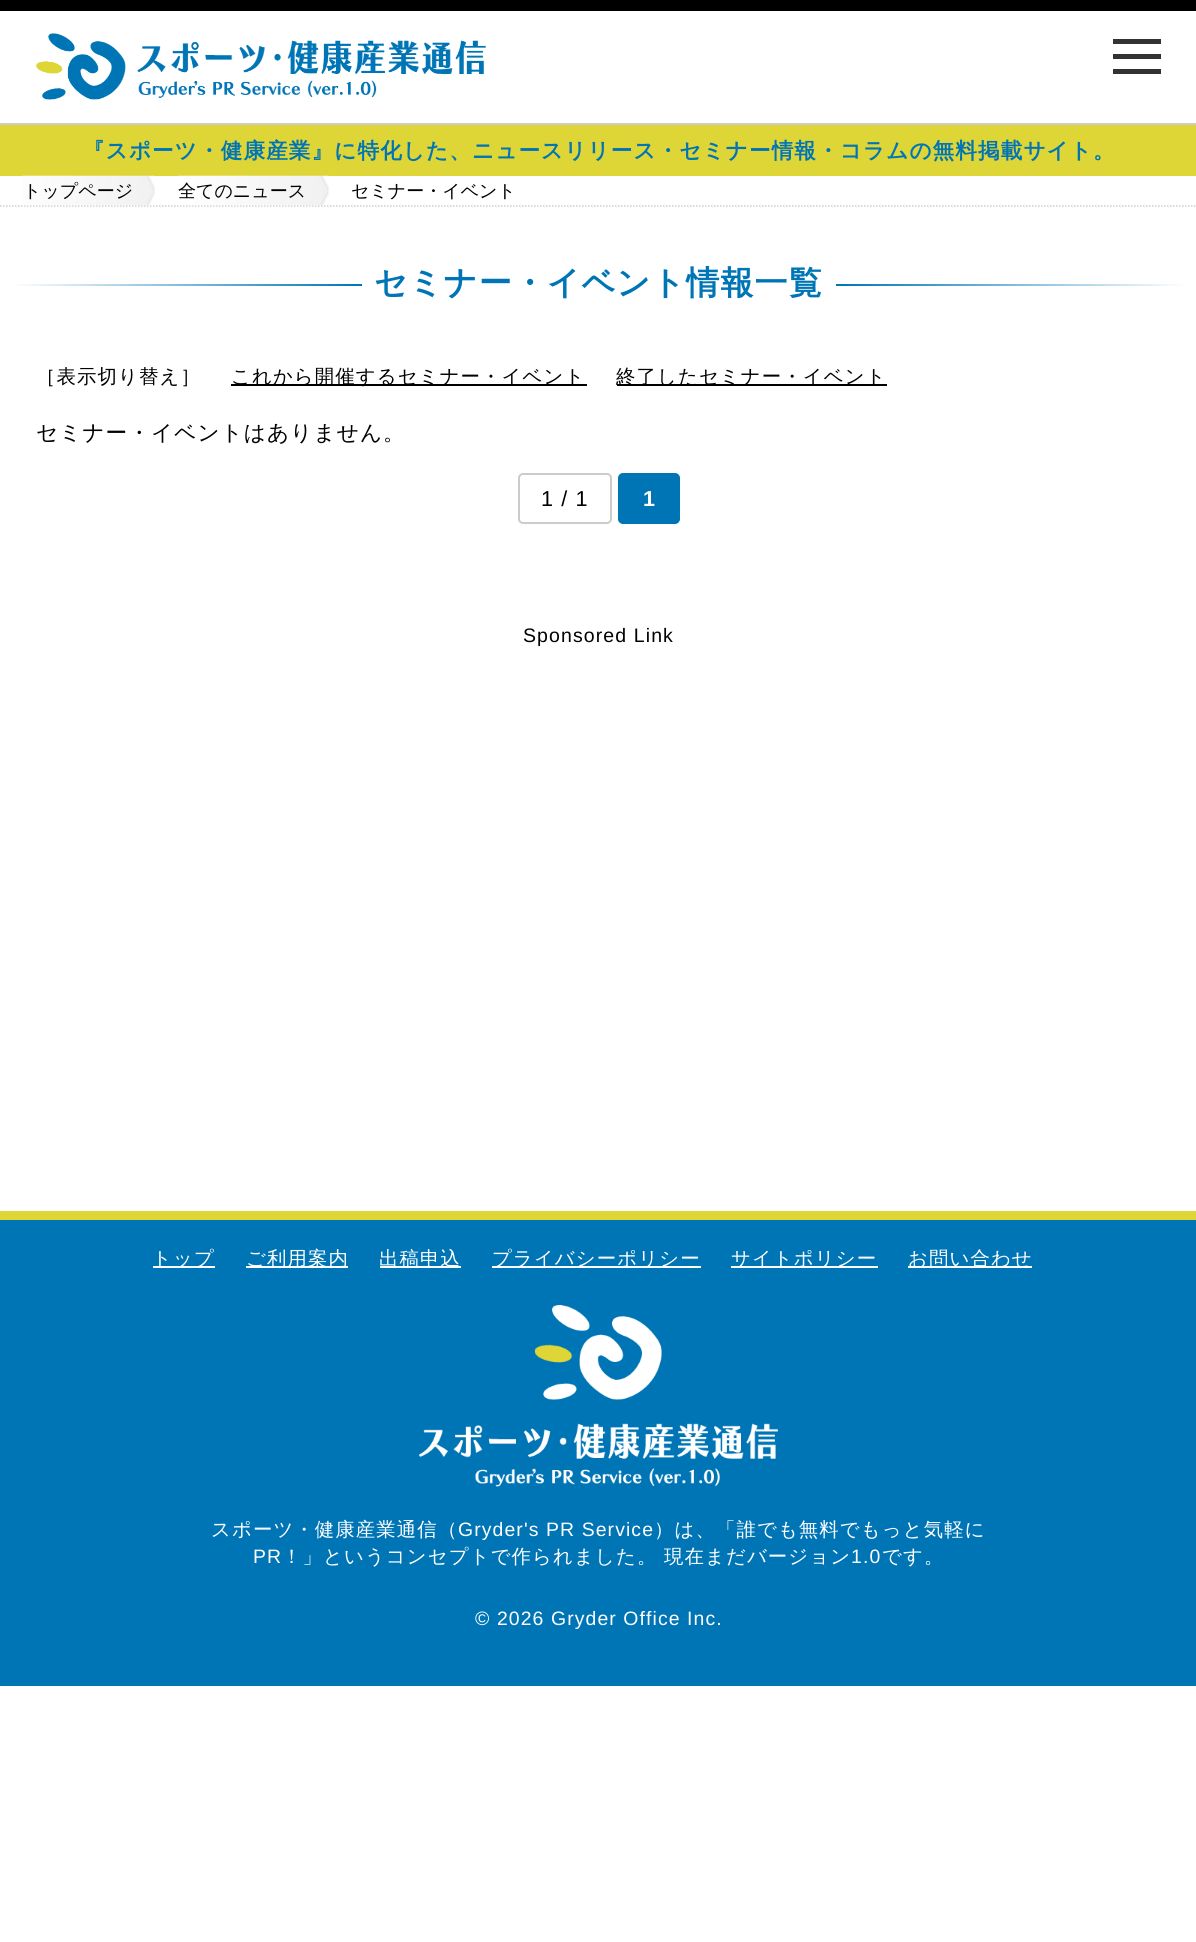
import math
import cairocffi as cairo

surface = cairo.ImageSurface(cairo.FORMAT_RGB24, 1196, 1942)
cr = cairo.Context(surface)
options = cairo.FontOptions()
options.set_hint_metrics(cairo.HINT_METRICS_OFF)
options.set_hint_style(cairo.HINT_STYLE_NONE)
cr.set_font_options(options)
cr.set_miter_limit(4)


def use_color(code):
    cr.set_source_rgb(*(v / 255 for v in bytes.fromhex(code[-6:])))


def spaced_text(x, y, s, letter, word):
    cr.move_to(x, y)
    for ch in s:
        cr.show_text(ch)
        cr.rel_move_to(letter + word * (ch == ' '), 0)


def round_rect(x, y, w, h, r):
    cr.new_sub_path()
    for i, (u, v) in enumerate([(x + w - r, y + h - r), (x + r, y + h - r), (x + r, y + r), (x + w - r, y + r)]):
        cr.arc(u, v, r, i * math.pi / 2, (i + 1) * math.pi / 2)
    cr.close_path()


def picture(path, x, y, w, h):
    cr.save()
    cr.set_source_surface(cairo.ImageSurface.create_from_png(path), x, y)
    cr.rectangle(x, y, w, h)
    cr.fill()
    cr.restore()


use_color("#ffffff")
cr.paint()
use_color("#000000")
cr.rectangle(0, 0, 1196, 11)
cr.fill()
use_color("#cccccc")
cr.rectangle(0, 123, 1196, 2)
cr.fill()
picture("img1.png", 35, 33, 451, 67)
use_color("#333333")
cr.rectangle(1113, 54, 48, 5)
cr.fill()
cr.rectangle(1113, 39, 48, 5)
cr.fill()
cr.rectangle(1113, 69, 48, 5)
cr.fill()
use_color("#ded536")
cr.rectangle(0, 125, 1196, 51)
cr.fill()
cr.select_font_face("WenQuanYi Zen Hei", cairo.FONT_SLANT_NORMAL, cairo.FONT_WEIGHT_BOLD)
cr.set_font_size(21.6)
use_color("#0075b6")
spaced_text(83, 158, "『スポーツ・健康産業』に特化した、ニュースリリース・セミナー情報・コラムの無料掲載サイト。", 1.1, 0)
cr.new_path()
cr.move_to(0, 206)
cr.line_to(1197, 206)
use_color("#cccccc")
cr.set_line_width(1.5)
cr.set_dash([1.5, 1.5])
cr.stroke()
picture("img2.png", 22, 175, 133, 31)
cr.select_font_face("WenQuanYi Zen Hei Medium")
cr.set_font_size(18)
use_color("#000000")
cr.move_to(23, 197)
cr.show_text("トップページ")
picture("img3.png", 178, 175, 151, 31)
cr.move_to(178, 197)
cr.show_text("全てのニュース")
cr.move_to(351, 197)
cr.show_text("セミナー・イベント")
gradient = cairo.LinearGradient(362, 284, 11, 284)
gradient.add_color_stop_rgba(0, 0, 0.459, 0.714, 1)
gradient.add_color_stop_rgba(1, 1, 1, 1, 1)
cr.set_source(gradient)
cr.rectangle(11, 284, 351, 2)
cr.fill()
cr.select_font_face("WenQuanYi Zen Hei", cairo.FONT_SLANT_NORMAL, cairo.FONT_WEIGHT_BOLD)
cr.set_font_size(33)
use_color("#0075b6")
spaced_text(374, 294, "セミナー・イベント情報一覧", 1.1, 0)
gradient = cairo.LinearGradient(836, 284, 1187, 284)
gradient.add_color_stop_rgba(0, 0, 0.459, 0.714, 1)
gradient.add_color_stop_rgba(1, 1, 1, 1, 1)
cr.set_source(gradient)
cr.rectangle(836, 284, 351, 2)
cr.fill()
cr.select_font_face("WenQuanYi Zen Hei Medium")
cr.set_font_size(19.4)
use_color("#000000")
spaced_text(36, 383, "［表示切り替え］", 1.1, 0)
cr.rectangle(231, 384, 356, 2)
cr.fill()
spaced_text(231, 383, "これから開催するセミナー・イベント", 1.1, 0)
cr.rectangle(617, 384, 270, 2)
cr.fill()
spaced_text(616, 383, "終了したセミナー・イベント", 1.1, 0)
cr.set_font_size(21.6)
spaced_text(36, 440, "セミナー・イベントはありません。", 1.1, 0)
round_rect(519, 474, 92, 49, 4)
use_color("#cccccc")
cr.set_line_width(2)
cr.set_dash([])
cr.stroke()
cr.select_font_face("Liberation Sans")
use_color("#000000")
spaced_text(541, 506, "1 / 1", 1.1, 0)
use_color("#0075b6")
round_rect(619, 474, 60, 49, 4)
cr.fill_preserve()
cr.stroke()
cr.select_font_face("Liberation Sans", cairo.FONT_SLANT_NORMAL, cairo.FONT_WEIGHT_BOLD)
use_color("#ffffff")
spaced_text(643, 506, "1", 1.1, 0)
cr.select_font_face("Liberation Sans")
cr.set_font_size(19.5)
use_color("#000000")
spaced_text(523, 642, "Sponsored Link", 1.1, 0)
use_color("#0075b6")
cr.rectangle(0, 1220, 1196, 466)
cr.fill()
use_color("#ded536")
cr.rectangle(0, 1211, 1196, 9)
cr.fill()
use_color("#ffffff")
cr.rectangle(153, 1266, 62, 2)
cr.fill()
cr.select_font_face("WenQuanYi Zen Hei Medium")
cr.set_font_size(19.4)
spaced_text(152, 1265, "トップ", 1.1, 0)
cr.rectangle(246, 1266, 102, 2)
cr.fill()
spaced_text(246, 1265, "ご利用案内", 1.1, 0)
cr.rectangle(380, 1266, 81, 2)
cr.fill()
spaced_text(379, 1265, "出稿申込", 1.1, 0)
cr.rectangle(492, 1266, 209, 2)
cr.fill()
spaced_text(492, 1265, "プライバシーポリシー", 1.1, 0)
cr.rectangle(731, 1266, 147, 2)
cr.fill()
spaced_text(731, 1265, "サイトポリシー", 1.1, 0)
cr.rectangle(908, 1266, 124, 2)
cr.fill()
spaced_text(908, 1265, "お問い合わせ", 1.1, 0)
picture("img4.png", 418, 1305, 360, 182)
spaced_text(211, 1536, "スポーツ・健康産業通信（", 1.1, 0)
cr.select_font_face("Liberation Sans")
spaced_text(458, 1536, "Gryder's PR Service", 1.1, 0)
cr.select_font_face("WenQuanYi Zen Hei Medium")
spaced_text(654, 1536, "）は、「誰でも無料でもっと気軽に", 1.1, 0)
cr.select_font_face("Liberation Sans")
spaced_text(253, 1563, "PR", 1.1, 0)
cr.select_font_face("WenQuanYi Zen Hei Medium")
spaced_text(282, 1563, "！」というコンセプトで作られました。", 1.1, 0)
spaced_text(664, 1563, "現在まだバージョン", 1.1, 0)
cr.select_font_face("Liberation Sans")
spaced_text(851, 1563, "1.0", 1.1, 0)
cr.select_font_face("WenQuanYi Zen Hei Medium")
spaced_text(882, 1563, "です。", 1.1, 0)
cr.select_font_face("Liberation Sans")
spaced_text(475, 1625, "© 2026 Gryder Office Inc.", 1.1, 0)
surface.write_to_png("result.png")
